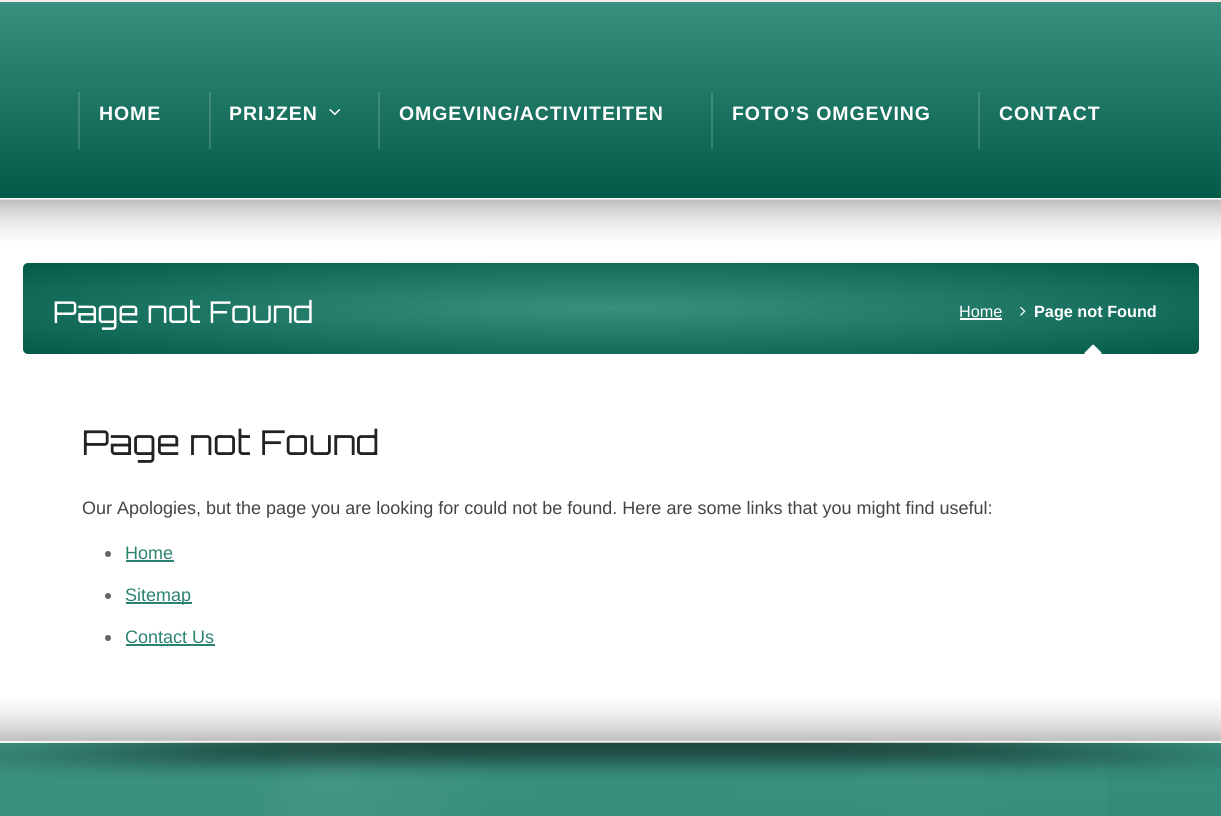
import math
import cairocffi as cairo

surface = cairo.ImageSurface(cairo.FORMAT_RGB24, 1221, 816)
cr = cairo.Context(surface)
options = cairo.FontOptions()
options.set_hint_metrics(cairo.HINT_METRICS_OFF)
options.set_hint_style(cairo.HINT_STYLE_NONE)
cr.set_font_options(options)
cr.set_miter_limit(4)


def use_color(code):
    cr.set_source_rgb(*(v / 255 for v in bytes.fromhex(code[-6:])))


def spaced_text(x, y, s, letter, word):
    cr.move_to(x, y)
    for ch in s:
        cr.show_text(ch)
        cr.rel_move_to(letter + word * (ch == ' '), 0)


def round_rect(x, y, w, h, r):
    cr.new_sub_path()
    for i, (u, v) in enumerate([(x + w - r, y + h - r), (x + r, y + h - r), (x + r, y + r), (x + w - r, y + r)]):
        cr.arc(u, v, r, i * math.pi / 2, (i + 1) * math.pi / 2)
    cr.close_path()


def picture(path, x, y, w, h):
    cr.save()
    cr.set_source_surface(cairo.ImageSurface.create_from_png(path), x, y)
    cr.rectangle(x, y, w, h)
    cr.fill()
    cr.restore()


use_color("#ffffff")
cr.paint()
gradient = cairo.LinearGradient(611, 1.5, 611, 198)
gradient.add_color_stop_rgba(0, 0.22, 0.569, 0.498, 1)
gradient.add_color_stop_rgba(1, 0.012, 0.353, 0.282, 1)
cr.set_source(gradient)
cr.rectangle(0, 2, 1221, 196)
cr.fill()
gradient = cairo.LinearGradient(611, 1.5, 611, 198)
gradient.add_color_stop_rgba(0, 0.337, 0.635, 0.573, 1)
gradient.add_color_stop_rgba(1, 0.161, 0.451, 0.388, 1)
cr.set_source(gradient)
cr.rectangle(978, 92, 2, 57)
cr.fill()
cr.rectangle(711, 92, 2, 57)
cr.fill()
cr.rectangle(378, 92, 2, 57)
cr.fill()
cr.rectangle(209, 92, 2, 57)
cr.fill()
cr.rectangle(78, 92, 2, 57)
cr.fill()
use_color("#f5ebeb")
cr.rectangle(0, 0, 1221, 2)
cr.fill()
cr.select_font_face("Liberation Sans", cairo.FONT_SLANT_NORMAL, cairo.FONT_WEIGHT_BOLD)
cr.set_font_size(19.5)
use_color("#ffffff")
spaced_text(99, 120, "HOME", 0.9, 0)
spaced_text(229, 120, "PRIJZEN", 0.9, 0)
picture("img1.png", 329, 108, 12, 8)
spaced_text(399, 120, "OMGEVING/ACTIVITEITEN", 0.9, 0)
spaced_text(732, 120, "FOTO’S OMGEVING", 0.9, 0)
spaced_text(999, 120, "CONTACT", 0.9, 0)
picture("img2.png", 0, 199, 1221, 42)
gradient = cairo.RadialGradient(0, 0, 0, 0, 0, 1)
gradient.set_matrix(cairo.Matrix(1 / 832, 0, 0, 1 / 65, -1 * 611 / 832, -1 * 308 / 65))
gradient.add_color_stop_rgba(0, 0.22, 0.569, 0.498, 1)
gradient.add_color_stop_rgba(1, 0.012, 0.353, 0.282, 1)
cr.set_source(gradient)
round_rect(23, 263, 1176, 91, 5)
cr.fill()
cr.select_font_face("Orbitron")
cr.set_font_size(30)
use_color("#ffffff")
cr.move_to(53, 323)
cr.show_text("Page not Found")
cr.select_font_face("Liberation Sans")
cr.set_font_size(16.25)
cr.move_to(959, 317)
cr.show_text("Home")
cr.rectangle(960, 318, 42, 2)
cr.fill()
picture("img3.png", 1020, 306, 6, 10)
cr.select_font_face("Liberation Sans", cairo.FONT_SLANT_NORMAL, cairo.FONT_WEIGHT_BOLD)
cr.move_to(1034, 317)
cr.show_text("Page not Found")
picture("img4.png", 1084, 344, 18, 10)
cr.select_font_face("Orbitron")
cr.set_font_size(34.25)
use_color("#222222")
cr.move_to(82, 455)
cr.show_text("Page not Found")
cr.select_font_face("Liberation Sans")
cr.set_font_size(18)
use_color("#444444")
cr.move_to(82, 514)
cr.show_text("Our Apologies, but the page you are looking for could not be found. Here are some links that you might find useful:")
use_color("#646668")
cr.new_path()
cr.arc(108, 554, 3, 0, 2 * math.pi)
cr.fill()
use_color("#2a8371")
cr.move_to(125, 559)
cr.show_text("Home")
cr.rectangle(126, 560, 48, 2)
cr.fill()
use_color("#646668")
cr.arc(108, 596, 3, 0, 2 * math.pi)
cr.fill()
use_color("#2a8371")
cr.rectangle(126, 602, 66, 2)
cr.fill()
cr.move_to(125, 601)
cr.show_text("Sitemap")
use_color("#646668")
cr.new_path()
cr.arc(108, 638, 3, 0, 2 * math.pi)
cr.fill()
use_color("#2a8371")
cr.move_to(125, 643)
cr.show_text("Contact Us")
cr.rectangle(126, 644, 89, 2)
cr.fill()
picture("img5.png", 0, 700, 1221, 42)
gradient = cairo.LinearGradient(610, 742, 611, 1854)
gradient.add_color_stop_rgba(0, 0.22, 0.569, 0.498, 1)
gradient.add_color_stop_rgba(0.64, 0.012, 0.353, 0.282, 1)
cr.set_source(gradient)
cr.rectangle(0, 743, 1221, 73)
cr.fill()
picture("img6.png", 0, 743, 1106, 73)
picture("img7.png", 0, 742, 1221, 38)
surface.write_to_png("result.png")
